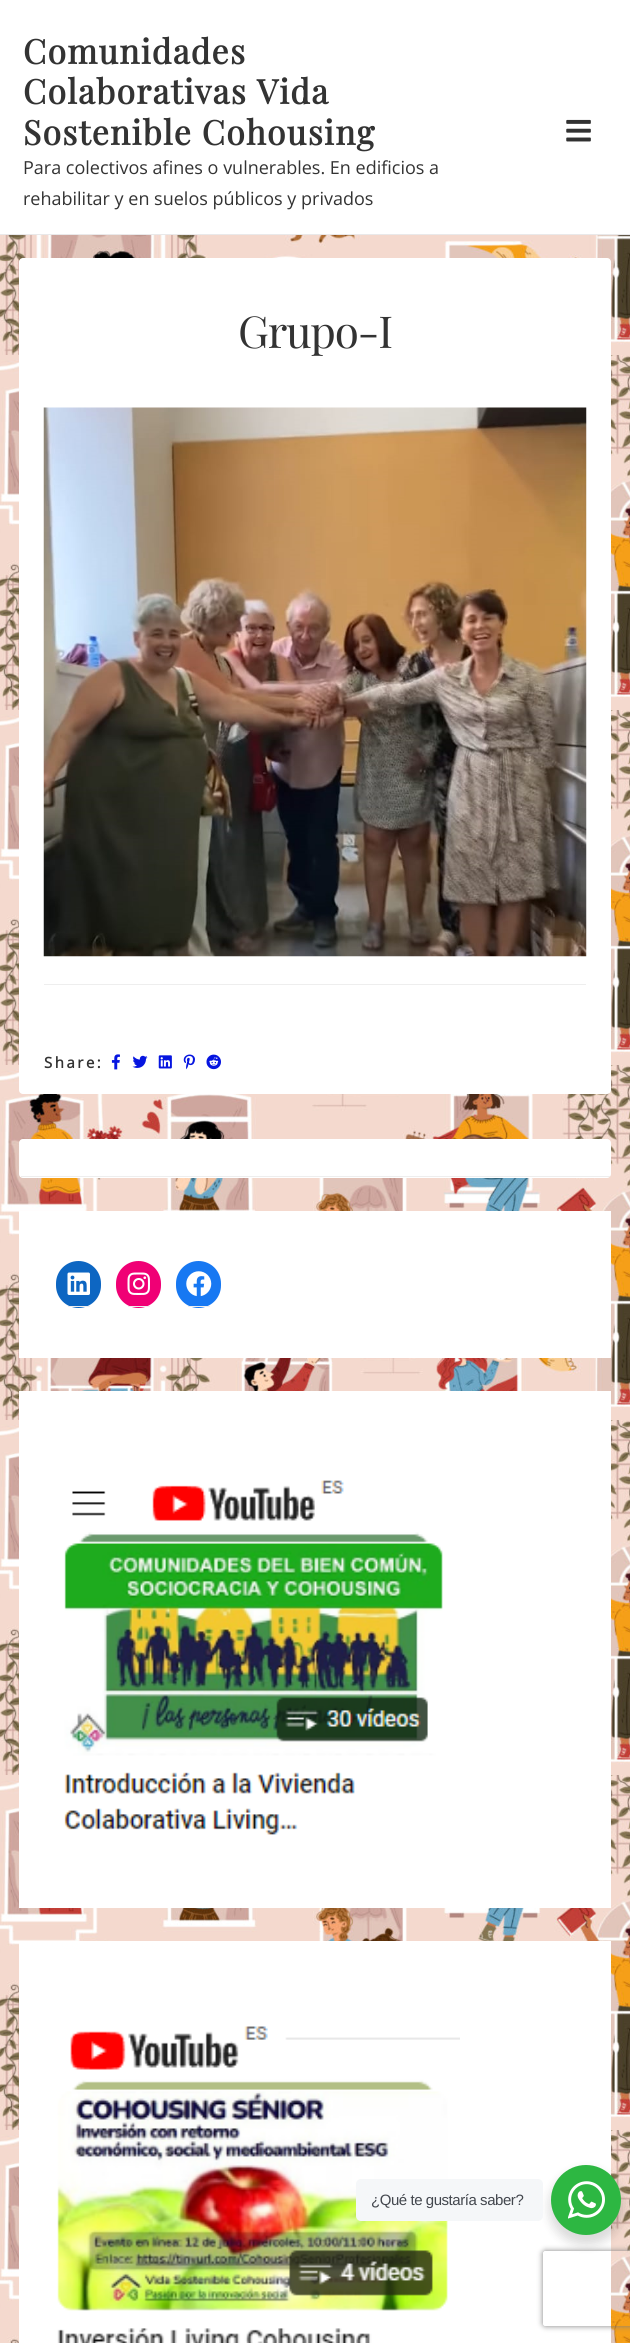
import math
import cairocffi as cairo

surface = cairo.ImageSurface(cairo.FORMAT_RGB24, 630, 2343)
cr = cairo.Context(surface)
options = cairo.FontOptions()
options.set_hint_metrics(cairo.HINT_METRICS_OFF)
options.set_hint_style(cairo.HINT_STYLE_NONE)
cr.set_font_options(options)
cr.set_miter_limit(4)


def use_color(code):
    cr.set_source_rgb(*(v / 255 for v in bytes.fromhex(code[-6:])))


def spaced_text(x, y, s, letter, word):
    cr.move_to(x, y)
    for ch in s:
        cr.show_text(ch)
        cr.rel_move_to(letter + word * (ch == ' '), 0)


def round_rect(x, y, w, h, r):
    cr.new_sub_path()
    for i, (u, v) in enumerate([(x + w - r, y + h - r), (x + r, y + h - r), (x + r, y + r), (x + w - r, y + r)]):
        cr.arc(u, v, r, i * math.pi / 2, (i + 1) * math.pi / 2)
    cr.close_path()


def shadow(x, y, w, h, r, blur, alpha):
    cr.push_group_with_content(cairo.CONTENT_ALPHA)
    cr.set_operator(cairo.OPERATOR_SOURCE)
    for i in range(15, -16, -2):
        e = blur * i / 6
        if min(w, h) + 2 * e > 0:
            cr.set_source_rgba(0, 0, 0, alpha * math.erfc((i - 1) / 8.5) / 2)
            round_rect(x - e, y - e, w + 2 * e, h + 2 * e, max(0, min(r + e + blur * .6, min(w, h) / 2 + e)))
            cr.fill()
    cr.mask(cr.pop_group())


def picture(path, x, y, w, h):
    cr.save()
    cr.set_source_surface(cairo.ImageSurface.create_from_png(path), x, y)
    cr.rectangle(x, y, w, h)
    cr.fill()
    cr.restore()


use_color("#ffffff")
cr.paint()
picture("img1.png", 0, 235, 630, 2108)
use_color("#e9e9ea")
cr.rectangle(0, 234, 630, 1)
cr.fill()
cr.select_font_face("Playfair Display", cairo.FONT_SLANT_NORMAL, cairo.FONT_WEIGHT_BOLD)
cr.set_font_size(33.75)
use_color("#333333")
spaced_text(23, 64, "Comunidades", 1.25, 0)
spaced_text(23, 104, "Colaborativas Vida", 1.25, 0)
spaced_text(23, 145, "Sostenible Cohousing", 1.25, 0)
cr.select_font_face("Open Sans")
cr.set_font_size(18)
cr.move_to(23, 174)
cr.show_text("Para colectivos afines o vulnerables. En edificios a")
cr.move_to(23, 205)
cr.show_text("rehabilitar y en suelos públicos y privados")
picture("img2.png", 566, 119, 25, 23)
use_color("#ffffff")
round_rect(19, 258, 592, 836, 4)
cr.fill()
cr.select_font_face("Playfair Display")
cr.set_font_size(44)
use_color("#333333")
spaced_text(238, 348, "Grupo-I", -1.25, 0)
picture("img3.png", 43, 407, 544, 550)
use_color("#eeeeee")
cr.rectangle(44, 984, 542, 1)
cr.fill()
cr.select_font_face("Open Sans", cairo.FONT_SLANT_NORMAL, cairo.FONT_WEIGHT_BOLD)
cr.set_font_size(15)
use_color("#333333")
spaced_text(44, 1068, "Share:", 2.5, 0)
picture("img4.png", 111, 1054, 9, 16)
picture("img5.png", 132, 1055, 16, 13)
picture("img6.png", 158, 1055, 14, 14)
picture("img7.png", 183, 1054, 12, 16)
picture("img8.png", 206, 1054, 15, 16)
use_color("#ffffff")
round_rect(19, 1139, 592, 39, 4)
cr.fill()
use_color("#eeeeee")
cr.rectangle(21, 1176, 589, 1)
cr.fill()
use_color("#ffffff")
cr.rectangle(19, 1211, 592, 147)
cr.fill()
use_color("#0d66c2")
round_rect(56, 1261, 45, 47, 22.5)
cr.fill()
use_color("#eeeeee")
cr.rectangle(68, 1306, 22, 1)
cr.fill()
picture("img9.png", 67, 1272, 23, 23)
use_color("#f00075")
round_rect(116, 1261, 45, 47, 22.5)
cr.fill()
use_color("#eeeeee")
cr.rectangle(128, 1306, 22, 1)
cr.fill()
picture("img10.png", 127, 1272, 23, 23)
use_color("#1778f2")
round_rect(176, 1261, 45, 47, 22.5)
cr.fill()
use_color("#eeeeee")
cr.rectangle(188, 1306, 22, 1)
cr.fill()
picture("img11.png", 186, 1271, 26, 26)
use_color("#ffffff")
cr.rectangle(19, 1391, 592, 517)
cr.fill()
picture("img12.png", 64, 1480, 379, 355)
cr.rectangle(19, 1941, 592, 402)
cr.fill()
picture("img13.png", 57, 2026, 403, 317)
use_color("#000000")
shadow(549, 2170, 75, 75, 37.5, 5, 0.14)
use_color("#f5f7f9")
round_rect(356, 2179, 187, 42, 5)
cr.fill()
cr.select_font_face("Liberation Sans")
use_color("#43474e")
spaced_text(371, 2205, "¿Qué te gustaría saber?", -0.45, 0)
use_color("#2db742")
cr.new_path()
cr.arc(586, 2200, 35, 0, 2 * math.pi)
cr.fill()
picture("img14.png", 568, 2181, 37, 38)
cr.save()
cr.set_fill_rule(cairo.FILL_RULE_EVEN_ODD)
cr.new_path()
cr.move_to(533, 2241)
cr.line_to(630, 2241)
cr.line_to(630, 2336)
cr.line_to(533, 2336)
cr.close_path()
cr.move_to(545.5, 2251)
cr.line_to(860.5, 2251)
cr.curve_to(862, 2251, 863, 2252, 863, 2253.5)
cr.line_to(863, 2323.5)
cr.curve_to(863, 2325, 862, 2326, 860.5, 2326)
cr.line_to(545.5, 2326)
cr.curve_to(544, 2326, 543, 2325, 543, 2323.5)
cr.line_to(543, 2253.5)
cr.curve_to(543, 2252, 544, 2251, 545.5, 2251)
cr.close_path()
cr.clip()
use_color("#808080")
shadow(543, 2251, 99, 75, 2.5, 3, 1)
cr.restore()
surface.write_to_png("result.png")
